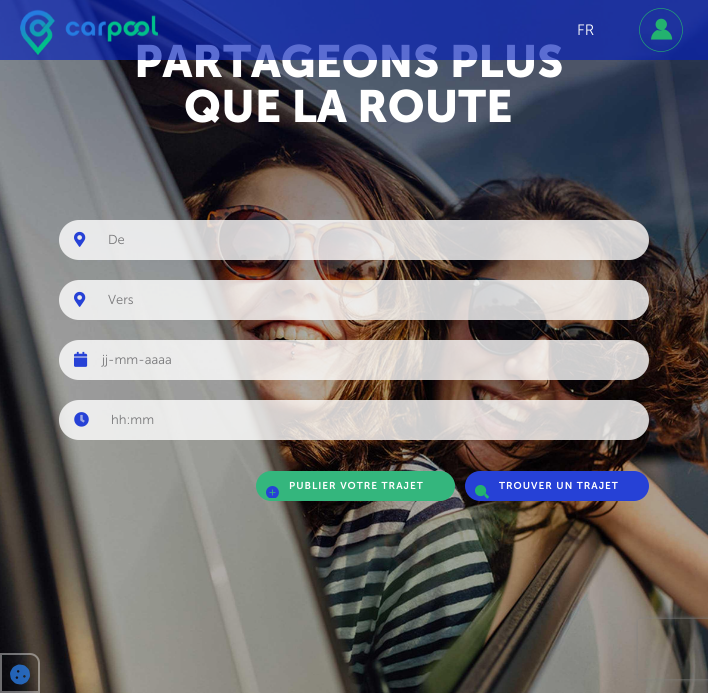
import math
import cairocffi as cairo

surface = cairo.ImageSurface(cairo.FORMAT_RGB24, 708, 693)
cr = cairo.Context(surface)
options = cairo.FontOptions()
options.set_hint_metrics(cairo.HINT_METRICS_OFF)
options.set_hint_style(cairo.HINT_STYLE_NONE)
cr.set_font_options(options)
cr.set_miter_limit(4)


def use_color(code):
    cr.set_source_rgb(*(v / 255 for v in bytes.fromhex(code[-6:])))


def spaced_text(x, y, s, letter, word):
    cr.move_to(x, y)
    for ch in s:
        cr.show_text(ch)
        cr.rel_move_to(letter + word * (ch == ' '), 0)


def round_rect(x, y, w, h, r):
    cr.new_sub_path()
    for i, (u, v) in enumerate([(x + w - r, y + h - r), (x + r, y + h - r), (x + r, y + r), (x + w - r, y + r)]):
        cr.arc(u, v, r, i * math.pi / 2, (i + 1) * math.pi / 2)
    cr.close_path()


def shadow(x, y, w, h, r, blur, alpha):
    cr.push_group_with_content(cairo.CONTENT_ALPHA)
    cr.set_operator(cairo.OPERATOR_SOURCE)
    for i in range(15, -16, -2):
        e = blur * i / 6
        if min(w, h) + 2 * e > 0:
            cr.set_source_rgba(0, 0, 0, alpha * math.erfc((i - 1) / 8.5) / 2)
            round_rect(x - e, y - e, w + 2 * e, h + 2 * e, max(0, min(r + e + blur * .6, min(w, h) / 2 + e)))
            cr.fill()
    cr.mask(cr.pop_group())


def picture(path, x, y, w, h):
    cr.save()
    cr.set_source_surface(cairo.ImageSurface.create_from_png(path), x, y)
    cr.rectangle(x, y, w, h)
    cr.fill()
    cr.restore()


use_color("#ffffff")
cr.paint()
picture("img1.png", 0, 0, 708, 693)
cr.select_font_face("Museo Sans", cairo.FONT_SLANT_NORMAL, cairo.FONT_WEIGHT_BOLD)
cr.set_font_size(45)
use_color("#ffffff")
cr.move_to(134, 77)
cr.show_text("PARTAGEONS PLUS")
cr.set_source_rgba(0.016, 0.122, 0.733, 0.65)
cr.rectangle(0, 0, 708, 60)
cr.fill()
picture("img2.png", 20, 9, 138, 46)
cr.select_font_face("Museo Sans Light")
cr.set_font_size(15)
use_color("#ffffff")
cr.move_to(577, 35)
cr.show_text("FR")
picture("img3.png", 639, 8, 44, 44)
cr.select_font_face("Museo Sans", cairo.FONT_SLANT_NORMAL, cairo.FONT_WEIGHT_BOLD)
cr.set_font_size(45)
cr.move_to(184, 122)
cr.show_text("QUE LA ROUTE")
cr.set_source_rgba(1, 1, 1, 0.8)
cr.new_path()
cr.move_to(79, 220)
cr.line_to(100, 220)
cr.line_to(100, 260)
cr.line_to(79, 260)
cr.curve_to(68, 260, 59, 251, 59, 240)
cr.curve_to(59, 229, 68, 220, 79, 220)
cr.close_path()
cr.fill()
picture("img4.png", 74, 231, 12, 16)
cr.new_path()
cr.move_to(100, 220)
cr.line_to(629, 220)
cr.curve_to(640, 220, 649, 229, 649, 240)
cr.curve_to(649, 251, 640, 260, 629, 260)
cr.line_to(100, 260)
cr.close_path()
cr.fill()
cr.select_font_face("Museo Sans Light")
cr.set_font_size(13)
use_color("#777779")
cr.move_to(108, 244)
cr.show_text("De")
cr.set_source_rgba(1, 1, 1, 0.8)
cr.new_path()
cr.move_to(79, 280)
cr.line_to(100, 280)
cr.line_to(100, 320)
cr.line_to(79, 320)
cr.curve_to(68, 320, 59, 311, 59, 300)
cr.curve_to(59, 289, 68, 280, 79, 280)
cr.close_path()
cr.fill()
picture("img5.png", 74, 291, 12, 16)
cr.new_path()
cr.move_to(100, 280)
cr.line_to(629, 280)
cr.curve_to(640, 280, 649, 289, 649, 300)
cr.curve_to(649, 311, 640, 320, 629, 320)
cr.line_to(100, 320)
cr.close_path()
cr.fill()
use_color("#777779")
cr.move_to(108, 304)
cr.show_text("Vers")
cr.set_source_rgba(1, 1, 1, 0.8)
cr.new_path()
cr.move_to(79, 340)
cr.line_to(102, 340)
cr.line_to(102, 380)
cr.line_to(79, 380)
cr.curve_to(68, 380, 59, 371, 59, 360)
cr.curve_to(59, 349, 68, 340, 79, 340)
cr.close_path()
cr.fill()
picture("img6.png", 74, 351, 14, 16)
cr.new_path()
cr.move_to(102, 340)
cr.line_to(629, 340)
cr.curve_to(640, 340, 649, 349, 649, 360)
cr.curve_to(649, 371, 640, 380, 629, 380)
cr.line_to(102, 380)
cr.close_path()
cr.fill()
use_color("#777779")
cr.move_to(102, 364)
cr.show_text("jj-mm-aaaa")
cr.set_source_rgba(1, 1, 1, 0.8)
cr.new_path()
cr.move_to(79, 400)
cr.line_to(104, 400)
cr.line_to(104, 440)
cr.line_to(79, 440)
cr.curve_to(68, 440, 59, 431, 59, 420)
cr.curve_to(59, 409, 68, 400, 79, 400)
cr.close_path()
cr.fill()
picture("img7.png", 74, 412, 15, 15)
picture("img8.png", 80, 415, 5, 8)
cr.new_path()
cr.move_to(104, 400)
cr.line_to(629, 400)
cr.curve_to(640, 400, 649, 409, 649, 420)
cr.curve_to(649, 431, 640, 440, 629, 440)
cr.line_to(104, 440)
cr.close_path()
cr.fill()
use_color("#777779")
cr.move_to(111, 424)
cr.show_text("hh:mm")
use_color("#34b67d")
round_rect(256, 471, 199, 30, 15)
cr.fill()
picture("img9.png", 266, 486, 13, 12)
cr.select_font_face("Museo Sans SemiBold")
cr.set_font_size(10)
use_color("#ffffff")
spaced_text(289, 489, "PUBLIER VOTRE TRAJET", 1, 0)
use_color("#2641d6")
round_rect(465, 471, 184, 30, 15)
cr.fill()
picture("img10.png", 475, 485, 14, 14)
use_color("#ffffff")
spaced_text(499, 489, "TROUVER UN TRAJET", 1, 0)
cr.new_path()
cr.move_to(1, 654)
cr.line_to(30, 654)
cr.curve_to(35, 654, 39, 658, 39, 663)
cr.line_to(39, 692)
cr.line_to(1, 692)
cr.close_path()
cr.set_source_rgba(1, 1, 1, 0.4)
cr.stroke()
picture("img11.png", 10, 664, 20, 21)
cr.save()
cr.set_fill_rule(cairo.FILL_RULE_EVEN_ODD)
cr.new_path()
cr.move_to(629, 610)
cr.line_to(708, 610)
cr.line_to(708, 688)
cr.line_to(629, 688)
cr.close_path()
cr.move_to(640, 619)
cr.line_to(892, 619)
cr.curve_to(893, 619, 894, 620, 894, 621)
cr.line_to(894, 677)
cr.curve_to(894, 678, 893, 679, 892, 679)
cr.line_to(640, 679)
cr.curve_to(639, 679, 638, 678, 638, 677)
cr.line_to(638, 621)
cr.curve_to(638, 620, 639, 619, 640, 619)
cr.close_path()
cr.clip()
use_color("#808080")
shadow(638, 619, 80, 60, 2, 2.5, 1)
cr.restore()
surface.write_to_png("result.png")
